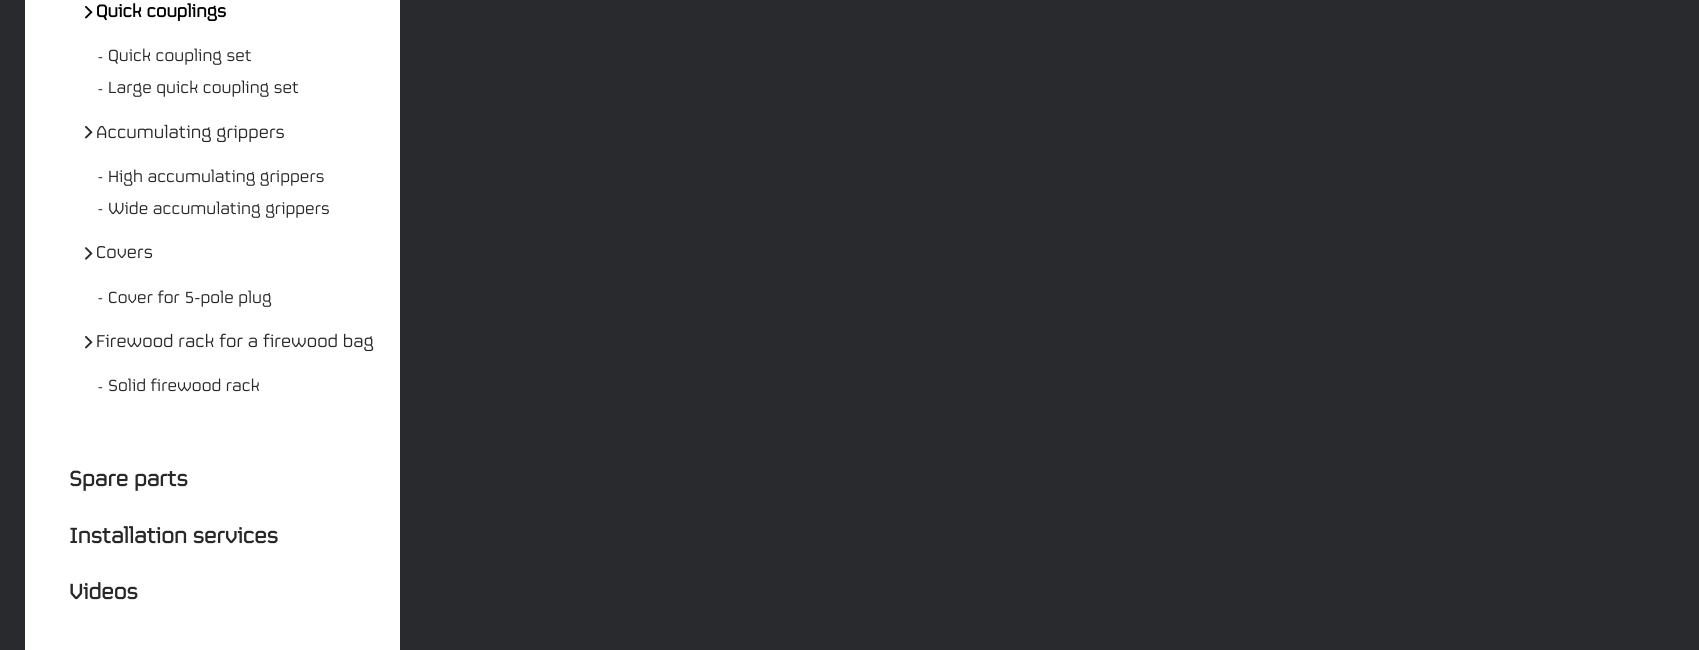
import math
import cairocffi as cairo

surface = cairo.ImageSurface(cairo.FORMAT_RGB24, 1699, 650)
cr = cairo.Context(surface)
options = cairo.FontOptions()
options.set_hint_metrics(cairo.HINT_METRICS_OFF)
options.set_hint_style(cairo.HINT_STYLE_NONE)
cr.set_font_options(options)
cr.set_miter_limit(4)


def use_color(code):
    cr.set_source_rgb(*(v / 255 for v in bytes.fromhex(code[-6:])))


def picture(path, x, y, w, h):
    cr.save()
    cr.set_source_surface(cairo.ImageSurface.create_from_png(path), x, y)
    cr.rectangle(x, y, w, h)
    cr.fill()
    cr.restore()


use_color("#292a2d")
cr.paint()
use_color("#ffffff")
cr.rectangle(25, 0, 375, 650)
cr.fill()
picture("img1.png", 85, 6, 8, 13)
cr.select_font_face("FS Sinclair", cairo.FONT_SLANT_NORMAL, cairo.FONT_WEIGHT_BOLD)
cr.set_font_size(19.1)
use_color("#000000")
cr.move_to(96, 17)
cr.show_text("Quick couplings")
cr.select_font_face("Liberation Serif")
cr.set_font_size(14)
use_color("#282828")
cr.move_to(98, 61)
cr.show_text("-")
cr.select_font_face("FS Sinclair")
cr.set_font_size(18)
cr.move_to(108, 61)
cr.show_text("Quick coupling set")
cr.select_font_face("Liberation Serif")
cr.set_font_size(14)
cr.move_to(98, 93)
cr.show_text("-")
cr.select_font_face("FS Sinclair")
cr.set_font_size(18)
cr.move_to(108, 93)
cr.show_text("Large quick coupling set")
picture("img2.png", 85, 126, 8, 13)
cr.set_font_size(19.1)
cr.move_to(96, 138)
cr.show_text("Accumulating grippers")
cr.select_font_face("Liberation Serif")
cr.set_font_size(14)
cr.move_to(98, 181)
cr.show_text("-")
cr.select_font_face("FS Sinclair")
cr.set_font_size(18)
cr.move_to(108, 182)
cr.show_text("High accumulating grippers")
cr.select_font_face("Liberation Serif")
cr.set_font_size(14)
cr.move_to(98, 213)
cr.show_text("-")
cr.select_font_face("FS Sinclair")
cr.set_font_size(18)
cr.move_to(108, 214)
cr.show_text("Wide accumulating grippers")
picture("img3.png", 85, 247, 8, 13)
cr.set_font_size(19.1)
cr.move_to(96, 258)
cr.show_text("Covers")
cr.select_font_face("Liberation Serif")
cr.set_font_size(14)
cr.move_to(98, 302)
cr.show_text("-")
cr.select_font_face("FS Sinclair")
cr.set_font_size(18)
cr.move_to(108, 303)
cr.show_text("Cover for 5-pole plug")
picture("img2.png", 85, 336, 8, 13)
cr.set_font_size(19.1)
cr.move_to(96, 347)
cr.show_text("Firewood rack for a firewood bag")
cr.select_font_face("Liberation Serif")
cr.set_font_size(14)
cr.move_to(98, 391)
cr.show_text("-")
cr.select_font_face("FS Sinclair")
cr.set_font_size(18)
cr.move_to(108, 391)
cr.show_text("Solid firewood rack")
cr.select_font_face("FS Sinclair", cairo.FONT_SLANT_NORMAL, cairo.FONT_WEIGHT_BOLD)
cr.set_font_size(23.4)
cr.move_to(69, 486)
cr.show_text("Spare parts")
cr.move_to(69, 543)
cr.show_text("Installation services")
cr.move_to(69, 599)
cr.show_text("Videos")
surface.write_to_png("result.png")
